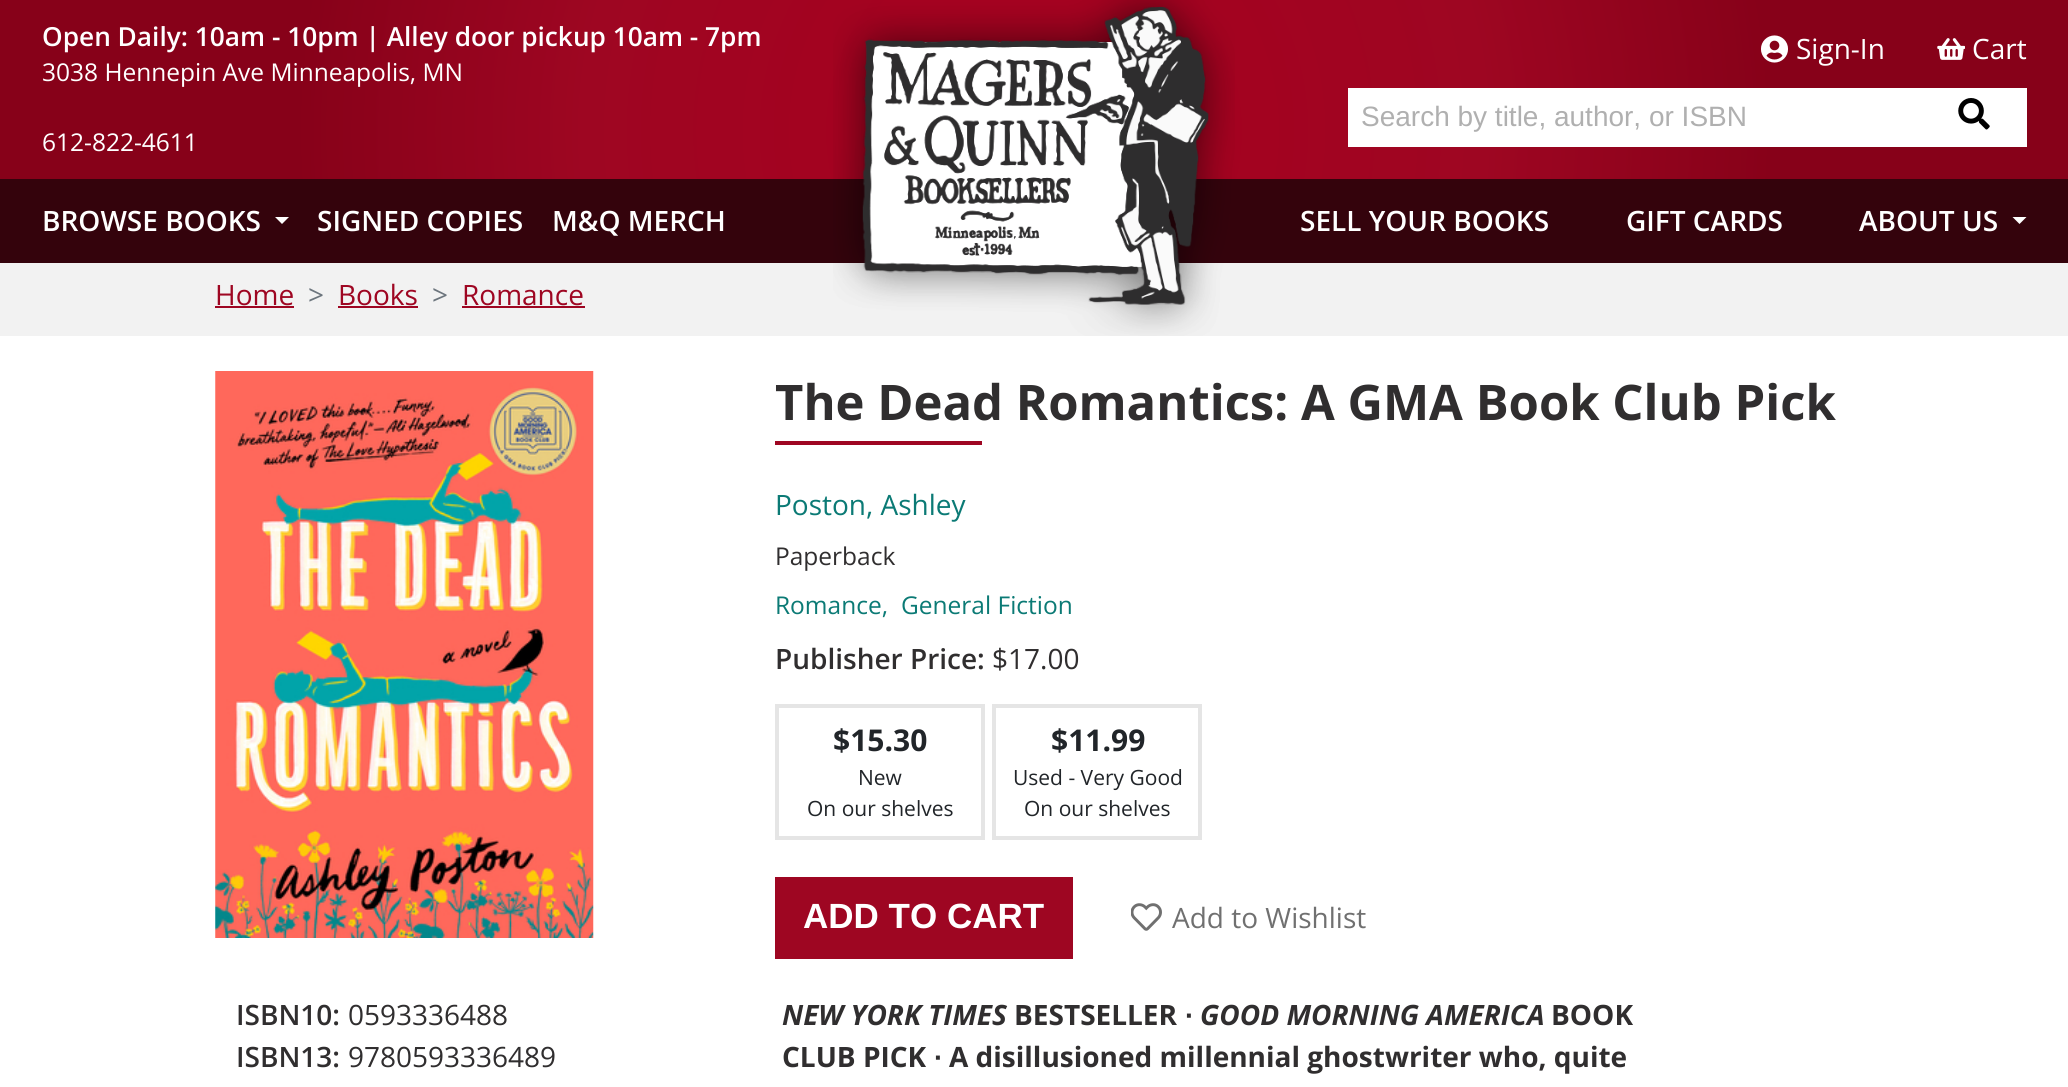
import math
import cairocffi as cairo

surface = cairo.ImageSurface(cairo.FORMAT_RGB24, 2068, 1087)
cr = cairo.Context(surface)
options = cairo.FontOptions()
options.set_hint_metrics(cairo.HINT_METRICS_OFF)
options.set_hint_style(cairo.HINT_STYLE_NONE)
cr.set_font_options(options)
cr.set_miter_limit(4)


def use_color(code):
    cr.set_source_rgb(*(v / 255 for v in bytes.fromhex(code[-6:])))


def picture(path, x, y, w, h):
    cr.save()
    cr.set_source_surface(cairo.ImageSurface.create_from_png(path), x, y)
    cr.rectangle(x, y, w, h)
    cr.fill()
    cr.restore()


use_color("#ffffff")
cr.paint()
gradient = cairo.RadialGradient(1034, 131, 0, 1034, 131, 1043)
gradient.add_color_stop_rgba(0.17, 0.643, 0.008, 0.125, 1)
gradient.add_color_stop_rgba(0.43, 0.62, 0.024, 0.133, 1)
gradient.add_color_stop_rgba(0.71, 0.529, 0.004, 0.098, 1)
gradient.add_color_stop_rgba(0.95, 0.529, 0.004, 0.098, 1)
cr.set_source(gradient)
cr.rectangle(0, 0, 2068, 179)
cr.fill()
cr.select_font_face("Open Sans SemiBold")
cr.set_font_size(26.25)
use_color("#ffffff")
cr.move_to(42, 46)
cr.show_text("Open Daily: 10am - 10pm | Alley door pickup 10am - 7pm")
cr.select_font_face("Open Sans")
cr.set_font_size(24.5)
cr.move_to(42, 81)
cr.show_text("3038 Hennepin Ave Minneapolis, MN")
cr.move_to(42, 151)
cr.show_text("612-822-4611")
use_color("#34030c")
cr.rectangle(0, 179, 2068, 84)
cr.fill()
use_color("#f2f2f2")
cr.rectangle(0, 263, 2068, 73)
cr.fill()
picture("img1.png", 833, 0, 402, 336)
picture("img2.png", 1761, 35, 27, 28)
cr.set_font_size(28)
use_color("#ffffff")
cr.move_to(1796, 59)
cr.show_text("Sign-In")
picture("img3.png", 1937, 38, 28, 22)
cr.move_to(1972, 59)
cr.show_text("Cart")
cr.rectangle(1348, 88, 679, 59)
cr.fill()
cr.select_font_face("Liberation Sans")
use_color("#b0b0b0")
cr.move_to(1361, 126)
cr.show_text("Search by title, author, or ISBN")
picture("img4.png", 1958, 98, 32, 32)
cr.select_font_face("Open Sans SemiBold")
use_color("#ffffff")
cr.move_to(42, 231)
cr.show_text("BROWSE BOOKS")
cr.new_path()
cr.move_to(275, 217)
cr.line_to(289, 217)
cr.line_to(282, 224)
cr.close_path()
cr.fill()
cr.move_to(317, 231)
cr.show_text("SIGNED COPIES")
cr.move_to(552, 231)
cr.show_text("M&Q MERCH")
cr.move_to(1300, 231)
cr.show_text("SELL YOUR BOOKS")
cr.move_to(1626, 231)
cr.show_text("GIFT CARDS")
cr.move_to(1859, 231)
cr.show_text("ABOUT US")
cr.new_path()
cr.move_to(2012.5, 217)
cr.line_to(2026.5, 217)
cr.line_to(2019.5, 224)
cr.close_path()
cr.fill()
cr.select_font_face("Open Sans")
use_color("#9e0622")
cr.move_to(215, 305)
cr.show_text("Home")
cr.rectangle(215, 306, 79, 2)
cr.fill()
use_color("#6c757d")
cr.move_to(308, 305)
cr.show_text(">")
use_color("#9e0622")
cr.move_to(338, 305)
cr.show_text("Books")
cr.rectangle(338, 306, 80, 2)
cr.fill()
use_color("#6c757d")
cr.move_to(432, 305)
cr.show_text(">")
use_color("#9e0622")
cr.move_to(462, 305)
cr.show_text("Romance")
cr.rectangle(462, 306, 123, 2)
cr.fill()
picture("img5.png", 215, 371, 379, 567)
cr.select_font_face("Open Sans", cairo.FONT_SLANT_NORMAL, cairo.FONT_WEIGHT_BOLD)
cr.set_font_size(49)
use_color("#302e2f")
cr.move_to(775, 420)
cr.show_text("The Dead Romantics: A GMA Book Club Pick")
use_color("#9e0622")
cr.rectangle(775, 441, 207, 4)
cr.fill()
cr.select_font_face("Open Sans")
cr.set_font_size(28)
use_color("#0b7a75")
cr.move_to(775, 515)
cr.show_text("Poston, Ashley")
cr.set_font_size(24.5)
use_color("#302e2f")
cr.move_to(775, 565)
cr.show_text("Paperback")
use_color("#0b7a75")
cr.move_to(775, 614)
cr.show_text("Romance,")
cr.move_to(901, 614)
cr.show_text("General Fiction")
cr.select_font_face("Open Sans SemiBold")
cr.set_font_size(28)
use_color("#302e2f")
cr.move_to(775, 669)
cr.show_text("Publisher Price:")
cr.select_font_face("Open Sans")
cr.move_to(992, 669)
cr.show_text("$17.00")
cr.rectangle(777, 706, 206, 132)
use_color("#e5e5e5")
cr.set_line_width(4)
cr.stroke()
cr.select_font_face("Open Sans", cairo.FONT_SLANT_NORMAL, cairo.FONT_WEIGHT_BOLD)
cr.set_font_size(30)
use_color("#212529")
cr.move_to(833, 751)
cr.show_text("$15.30")
cr.select_font_face("Open Sans")
cr.set_font_size(21)
cr.move_to(858, 785)
cr.show_text("New")
cr.move_to(807, 816)
cr.show_text("On our shelves")
cr.rectangle(994, 706, 206, 132)
use_color("#e5e5e5")
cr.stroke()
cr.select_font_face("Open Sans", cairo.FONT_SLANT_NORMAL, cairo.FONT_WEIGHT_BOLD)
cr.set_font_size(30)
use_color("#212529")
cr.move_to(1051, 751)
cr.show_text("$11.99")
cr.select_font_face("Open Sans")
cr.set_font_size(21)
cr.move_to(1013, 785)
cr.show_text("Used - Very Good")
cr.move_to(1024, 816)
cr.show_text("On our shelves")
use_color("#9e0622")
cr.rectangle(775, 877, 298, 82)
cr.fill()
cr.select_font_face("Liberation Sans", cairo.FONT_SLANT_NORMAL, cairo.FONT_WEIGHT_BOLD)
cr.set_font_size(35)
use_color("#ffffff")
cr.move_to(803, 928)
cr.show_text("ADD TO CART")
picture("img6.png", 1131, 903, 31, 28)
cr.select_font_face("Open Sans")
cr.set_font_size(28)
use_color("#707070")
cr.move_to(1172, 928)
cr.show_text("Add to Wishlist")
cr.select_font_face("Open Sans SemiBold")
use_color("#302e2f")
cr.move_to(236, 1025)
cr.show_text("ISBN10:")
cr.select_font_face("Open Sans")
cr.move_to(348, 1025)
cr.show_text("0593336488")
cr.select_font_face("Open Sans SemiBold")
cr.move_to(236, 1067)
cr.show_text("ISBN13:")
cr.select_font_face("Open Sans")
cr.move_to(348, 1067)
cr.show_text("9780593336489")
cr.select_font_face("Open Sans", cairo.FONT_SLANT_ITALIC, cairo.FONT_WEIGHT_BOLD)
cr.move_to(782, 1025)
cr.show_text("NEW YORK TIMES")
cr.select_font_face("Open Sans", cairo.FONT_SLANT_NORMAL, cairo.FONT_WEIGHT_BOLD)
cr.move_to(1014, 1025)
cr.show_text("BESTSELLER")
cr.select_font_face("Liberation Sans", cairo.FONT_SLANT_NORMAL, cairo.FONT_WEIGHT_BOLD)
cr.move_to(1185, 1025)
cr.show_text("∙")
cr.select_font_face("Open Sans", cairo.FONT_SLANT_ITALIC, cairo.FONT_WEIGHT_BOLD)
cr.move_to(1200, 1025)
cr.show_text("GOOD MORNING AMERICA")
cr.select_font_face("Open Sans", cairo.FONT_SLANT_NORMAL, cairo.FONT_WEIGHT_BOLD)
cr.move_to(1551, 1025)
cr.show_text("BOOK")
cr.move_to(782, 1067)
cr.show_text("CLUB PICK")
cr.select_font_face("Liberation Sans", cairo.FONT_SLANT_NORMAL, cairo.FONT_WEIGHT_BOLD)
cr.move_to(934, 1067)
cr.show_text("∙")
cr.select_font_face("Open Sans", cairo.FONT_SLANT_NORMAL, cairo.FONT_WEIGHT_BOLD)
cr.move_to(949, 1067)
cr.show_text("A disillusioned millennial ghostwriter who, quite")
surface.write_to_png("result.png")
